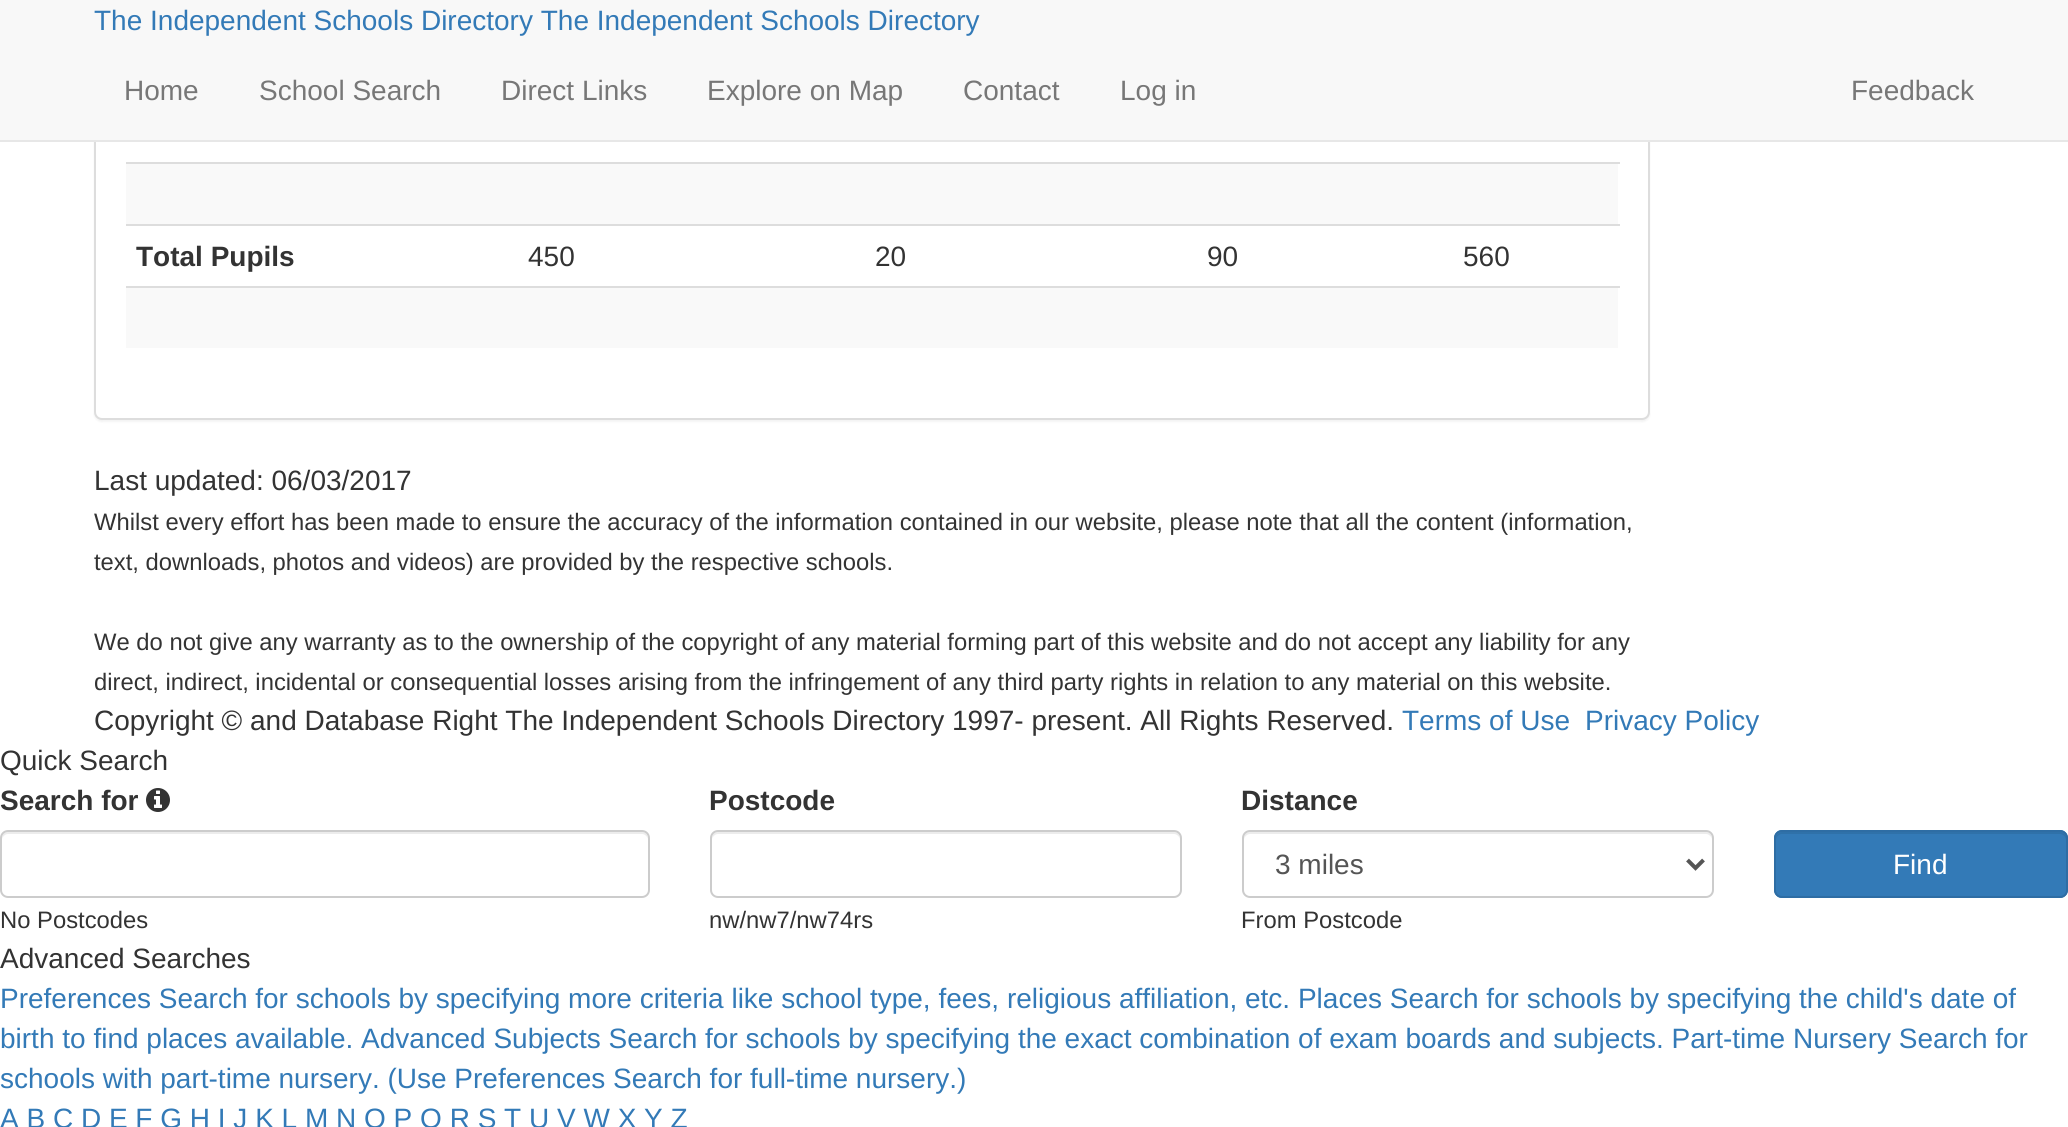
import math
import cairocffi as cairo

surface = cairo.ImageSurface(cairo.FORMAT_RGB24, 2068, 1127)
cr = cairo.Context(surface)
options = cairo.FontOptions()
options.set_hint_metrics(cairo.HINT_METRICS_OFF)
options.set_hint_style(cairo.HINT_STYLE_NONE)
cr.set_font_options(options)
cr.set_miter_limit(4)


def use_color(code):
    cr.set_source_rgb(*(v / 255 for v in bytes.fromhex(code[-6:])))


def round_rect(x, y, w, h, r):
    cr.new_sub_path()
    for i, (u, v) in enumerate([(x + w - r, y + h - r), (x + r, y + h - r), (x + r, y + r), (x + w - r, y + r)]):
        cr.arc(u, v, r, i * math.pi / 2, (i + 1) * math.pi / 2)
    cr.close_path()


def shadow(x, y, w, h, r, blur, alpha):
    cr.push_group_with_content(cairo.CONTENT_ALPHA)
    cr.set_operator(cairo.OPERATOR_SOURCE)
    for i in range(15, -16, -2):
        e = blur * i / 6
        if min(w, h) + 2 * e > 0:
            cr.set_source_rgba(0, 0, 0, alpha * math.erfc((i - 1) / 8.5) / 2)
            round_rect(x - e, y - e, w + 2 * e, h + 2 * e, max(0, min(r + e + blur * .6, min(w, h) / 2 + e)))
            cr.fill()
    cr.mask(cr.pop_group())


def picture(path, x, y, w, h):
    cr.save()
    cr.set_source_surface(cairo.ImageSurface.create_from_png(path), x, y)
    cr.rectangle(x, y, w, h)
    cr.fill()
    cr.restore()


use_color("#ffffff")
cr.paint()
use_color("#000000")
shadow(94, -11, 1556, 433, 8, 1, 0.05)
use_color("#ffffff")
round_rect(95, -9, 1554, 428, 7)
cr.fill_preserve()
use_color("#dddddd")
cr.stroke()
use_color("#f8f8f8")
cr.rectangle(0, 0, 2068, 140)
cr.fill()
use_color("#e7e7e7")
cr.rectangle(0, 140, 2068, 2)
cr.fill()
cr.select_font_face("Liberation Sans")
cr.set_font_size(28)
use_color("#337ab7")
cr.move_to(94, 30)
cr.show_text("The Independent Schools Directory The Independent Schools Directory")
use_color("#777777")
cr.move_to(124, 100)
cr.show_text("Home")
cr.move_to(259, 100)
cr.show_text("School Search")
cr.move_to(501, 100)
cr.show_text("Direct Links")
cr.move_to(707, 100)
cr.show_text("Explore on Map")
cr.move_to(963, 100)
cr.show_text("Contact")
cr.move_to(1120, 100)
cr.show_text("Log in")
cr.move_to(1851, 100)
cr.show_text("Feedback")
use_color("#f9f9f9")
cr.rectangle(126, 164, 1492, 60)
cr.fill()
use_color("#dddddd")
cr.rectangle(126, 162, 1494, 2)
cr.fill()
cr.select_font_face("Liberation Sans", cairo.FONT_SLANT_NORMAL, cairo.FONT_WEIGHT_BOLD)
use_color("#333333")
cr.move_to(136, 266)
cr.show_text("Total Pupils")
cr.select_font_face("Liberation Sans")
cr.move_to(528, 266)
cr.show_text("450")
cr.move_to(875, 266)
cr.show_text("20")
cr.move_to(1207, 266)
cr.show_text("90")
use_color("#dddddd")
cr.rectangle(126, 224, 1494, 2)
cr.fill()
use_color("#333333")
cr.move_to(1463, 266)
cr.show_text("560")
use_color("#f9f9f9")
cr.rectangle(126, 288, 1492, 60)
cr.fill()
use_color("#dddddd")
cr.rectangle(126, 286, 1494, 2)
cr.fill()
use_color("#333333")
cr.move_to(94, 490)
cr.show_text("Last updated: 06/03/2017")
cr.set_font_size(23.8)
cr.move_to(94, 530)
cr.show_text("Whilst every effort has been made to ensure the accuracy of the information contained in our website, please note that all the content (information,")
cr.move_to(94, 570)
cr.show_text("text, downloads, photos and videos) are provided by the respective schools.")
cr.move_to(94, 650)
cr.show_text("We do not give any warranty as to the ownership of the copyright of any material forming part of this website and do not accept any liability for any")
cr.move_to(94, 690)
cr.show_text("direct, indirect, incidental or consequential losses arising from the infringement of any third party rights in relation to any material on this website.")
cr.set_font_size(28)
cr.move_to(94, 730)
cr.show_text("Copyright © and Database Right The Independent Schools Directory 1997- present. All Rights Reserved.")
use_color("#337ab7")
cr.move_to(1402, 730)
cr.show_text("Terms of Use")
cr.move_to(1585, 730)
cr.show_text("Privacy Policy")
use_color("#333333")
cr.move_to(0, 770)
cr.show_text("Quick Search")
cr.select_font_face("Liberation Sans", cairo.FONT_SLANT_NORMAL, cairo.FONT_WEIGHT_BOLD)
cr.move_to(0, 810)
cr.show_text("Search for")
picture("img1.png", 146, 788, 24, 24)
use_color("#ececec")
cr.new_path()
cr.move_to(8, 834)
cr.line_to(642, 834)
cr.curve_to(645, 834, 648, 837, 648, 840)
cr.curve_to(648, 836, 647, 832, 642, 832)
cr.line_to(8, 832)
cr.curve_to(3, 832, 2, 836, 2, 840)
cr.curve_to(2, 837, 5, 834, 8, 834)
cr.close_path()
cr.fill()
round_rect(1, 831, 648, 66, 7)
use_color("#cccccc")
cr.stroke()
cr.select_font_face("Liberation Sans")
cr.set_font_size(23.8)
use_color("#333333")
cr.move_to(0, 928)
cr.show_text("No Postcodes")
cr.select_font_face("Liberation Sans", cairo.FONT_SLANT_NORMAL, cairo.FONT_WEIGHT_BOLD)
cr.set_font_size(28)
cr.move_to(709, 810)
cr.show_text("Postcode")
use_color("#ececec")
cr.new_path()
cr.move_to(718, 834)
cr.line_to(1174, 834)
cr.curve_to(1177, 834, 1180, 837, 1180, 840)
cr.curve_to(1180, 836, 1179, 832, 1174, 832)
cr.line_to(718, 832)
cr.curve_to(713, 832, 712, 836, 712, 840)
cr.curve_to(712, 837, 715, 834, 718, 834)
cr.close_path()
cr.fill()
round_rect(711, 831, 470, 66, 7)
use_color("#cccccc")
cr.stroke()
cr.select_font_face("Liberation Sans")
cr.set_font_size(23.8)
use_color("#333333")
cr.move_to(709, 928)
cr.show_text("nw/nw7/nw74rs")
cr.select_font_face("Liberation Sans", cairo.FONT_SLANT_NORMAL, cairo.FONT_WEIGHT_BOLD)
cr.set_font_size(28)
cr.move_to(1241, 810)
cr.show_text("Distance")
use_color("#ececec")
cr.new_path()
cr.move_to(1250, 834)
cr.line_to(1706, 834)
cr.curve_to(1709, 834, 1712, 837, 1712, 840)
cr.curve_to(1712, 836, 1711, 832, 1706, 832)
cr.line_to(1250, 832)
cr.curve_to(1245, 832, 1244, 836, 1244, 840)
cr.curve_to(1244, 837, 1247, 834, 1250, 834)
cr.close_path()
cr.fill()
round_rect(1243, 831, 470, 66, 7)
use_color("#cccccc")
cr.stroke()
cr.new_path()
cr.move_to(1687.5, 860)
cr.line_to(1695.5, 868)
cr.line_to(1703.5, 860)
use_color("#555555")
cr.set_line_width(4)
cr.stroke()
cr.select_font_face("Liberation Sans")
cr.move_to(1275, 874)
cr.show_text("3 miles")
cr.set_font_size(23.8)
use_color("#333333")
cr.move_to(1241, 928)
cr.show_text("From Postcode")
use_color("#337ab7")
round_rect(1774, 830, 294, 68, 8)
cr.fill()
use_color("#2f71a9")
cr.new_path()
cr.move_to(1782, 834)
cr.line_to(2060, 834)
cr.curve_to(2063, 834, 2066, 837, 2066, 840)
cr.line_to(2066, 838)
cr.curve_to(2066, 835, 2063, 832, 2060, 832)
cr.line_to(1782, 832)
cr.curve_to(1779, 832, 1776, 835, 1776, 838)
cr.line_to(1776, 840)
cr.curve_to(1776, 837, 1779, 834, 1782, 834)
cr.close_path()
cr.fill()
round_rect(1775, 831, 292, 66, 7)
use_color("#2e6da4")
cr.set_line_width(2)
cr.stroke()
cr.set_font_size(28)
use_color("#ffffff")
cr.move_to(1893, 874)
cr.show_text("Find")
use_color("#333333")
cr.move_to(0, 968)
cr.show_text("Advanced Searches")
use_color("#337ab7")
cr.move_to(0, 1008)
cr.show_text("Preferences Search for schools by specifying more criteria like school type, fees, religious affiliation, etc. Places Search for schools by specifying the child's date of")
cr.move_to(0, 1048)
cr.show_text("birth to find places available. Advanced Subjects Search for schools by specifying the exact combination of exam boards and subjects. Part-time Nursery Search for")
cr.move_to(0, 1088)
cr.show_text("schools with part-time nursery. (Use Preferences Search for full-time nursery.)")
cr.move_to(0, 1128)
cr.show_text("A B C D E F G H I J K L M N O P Q R S T U V W X Y Z")
surface.write_to_png("result.png")
